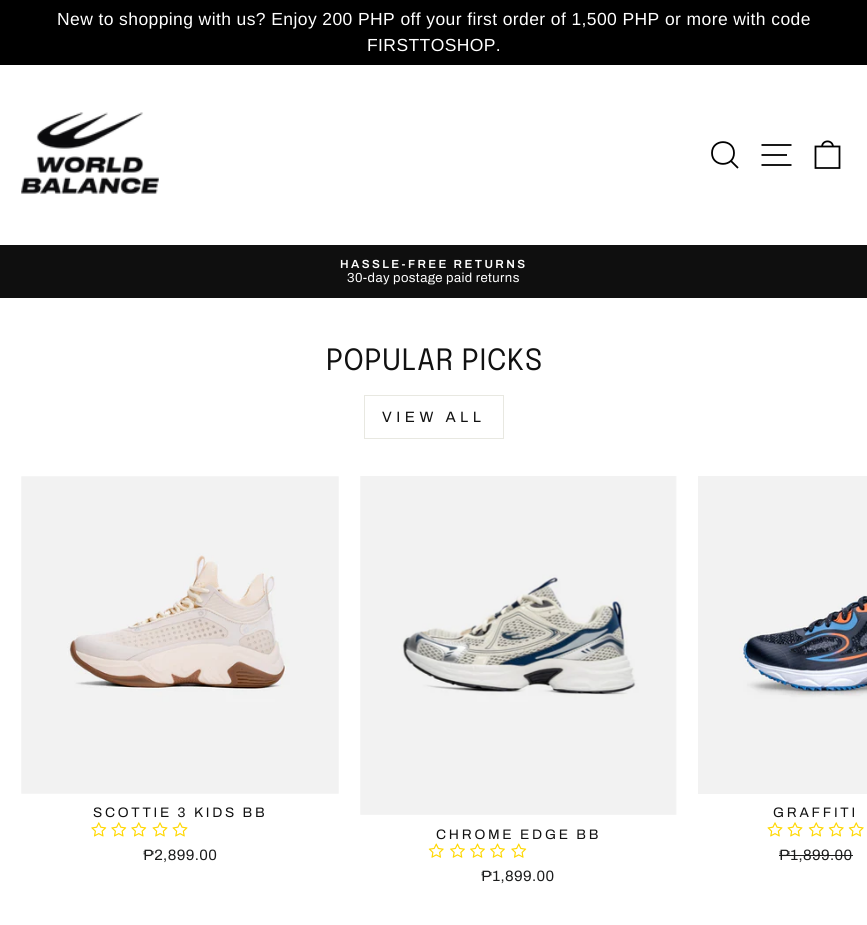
import math
import cairocffi as cairo

surface = cairo.ImageSurface(cairo.FORMAT_RGB24, 867, 925)
cr = cairo.Context(surface)
options = cairo.FontOptions()
options.set_hint_metrics(cairo.HINT_METRICS_OFF)
options.set_hint_style(cairo.HINT_STYLE_NONE)
cr.set_font_options(options)
cr.set_miter_limit(4)


def use_color(code):
    cr.set_source_rgb(*(v / 255 for v in bytes.fromhex(code[-6:])))


def spaced_text(x, y, s, letter, word):
    cr.move_to(x, y)
    for ch in s:
        cr.show_text(ch)
        cr.rel_move_to(letter + word * (ch == ' '), 0)


def picture(path, x, y, w, h):
    cr.save()
    cr.set_source_surface(cairo.ImageSurface.create_from_png(path), x, y)
    cr.rectangle(x, y, w, h)
    cr.fill()
    cr.restore()


use_color("#ffffff")
cr.paint()
use_color("#000000")
cr.rectangle(0, 0, 867, 65)
cr.fill()
cr.select_font_face("Liberation Sans")
cr.set_font_size(17.5)
use_color("#ffffff")
spaced_text(57, 25, "New to shopping with us? Enjoy 200 PHP off your first order of 1,500 PHP or more with code", 0.4, 0)
spaced_text(367, 51, "FIRSTTOSHOP.", 0.4, 0)
picture("img1.png", 21, 112, 138, 82)
cr.new_path()
cr.move_to(734, 153)
cr.curve_to(734, 167.5, 712, 167.5, 712, 153)
cr.curve_to(712, 138.5, 734, 138.5, 734, 153)
cr.close_path()
cr.move_to(738, 168)
cr.line_to(731, 161)
use_color("#000000")
cr.set_line_width(1.8)
cr.stroke()
cr.new_path()
cr.move_to(761.5, 145)
cr.line_to(791.5, 145)
cr.move_to(761.5, 155)
cr.line_to(787, 155)
cr.move_to(761.5, 165)
cr.line_to(791.5, 165)
cr.stroke()
cr.new_path()
cr.move_to(815.5, 146.5)
cr.line_to(839.5, 146.5)
cr.line_to(839.5, 168)
cr.line_to(815.5, 168)
cr.close_path()
cr.move_to(822, 147)
cr.curve_to(822, 139.5, 833, 139.5, 833, 147)
cr.stroke()
use_color("#0f0f0f")
cr.rectangle(0, 245, 867, 53)
cr.fill()
cr.select_font_face("Archivo SemiBold")
cr.set_font_size(11.75)
use_color("#ffffff")
spaced_text(340, 268, "HASSLE-FREE RETURNS", 2.4, 0)
cr.select_font_face("Archivo")
cr.set_font_size(13.1)
spaced_text(347, 282, "30-day postage paid returns", 0.4, 0)
cr.select_font_face("Epilogue")
cr.set_font_size(29.25)
use_color("#111111")
spaced_text(326, 370, "POPULAR PICKS", 0.75, 0)
cr.rectangle(364.5, 395.5, 139, 43)
use_color("#e8e8e1")
cr.set_line_width(1)
cr.stroke()
cr.select_font_face("Archivo")
cr.set_font_size(15)
use_color("#111111")
spaced_text(382, 422, "VIEW ALL", 4.5, 0)
picture("img2.png", 21, 476, 318, 318)
cr.set_font_size(13.75)
spaced_text(93, 817, "SCOTTIE 3 KIDS BB", 2.75, 0)
picture("img3.png", 91, 822, 16, 15)
picture("img3.png", 111, 822, 16, 15)
picture("img3.png", 131, 822, 16, 15)
picture("img4.png", 152, 822, 16, 15)
picture("img4.png", 172, 822, 16, 15)
cr.set_font_size(15)
use_color("#1c1d1d")
spaced_text(143, 860, "₱2,899.00", 0.4, 0)
picture("img5.png", 360, 476, 317, 339)
cr.set_font_size(13.75)
use_color("#111111")
spaced_text(436, 839, "CHROME EDGE BB", 2.75, 0)
picture("img6.png", 428, 843, 16, 15)
picture("img7.png", 450, 843, 15, 15)
picture("img7.png", 470, 843, 15, 15)
picture("img7.png", 490, 843, 15, 15)
picture("img8.png", 511, 843, 16, 15)
cr.set_font_size(15)
use_color("#1c1d1d")
spaced_text(481, 881, "₱1,899.00", 0.4, 0)
picture("img9.png", 698, 476, 169, 318)
cr.set_font_size(13.75)
use_color("#111111")
spaced_text(773, 817, "GRAFFITI", 2.75, 0)
picture("img4.png", 767, 822, 16, 15)
picture("img4.png", 787, 822, 16, 15)
picture("img10.png", 808, 822, 16, 15)
picture("img10.png", 828, 822, 16, 15)
picture("img10.png", 848, 822, 16, 15)
cr.set_font_size(15)
use_color("#1c1d1d")
spaced_text(779, 860, "₱1,899.00", 0.4, 0)
cr.rectangle(779, 855, 74, 1)
cr.fill()
surface.write_to_png("result.png")
